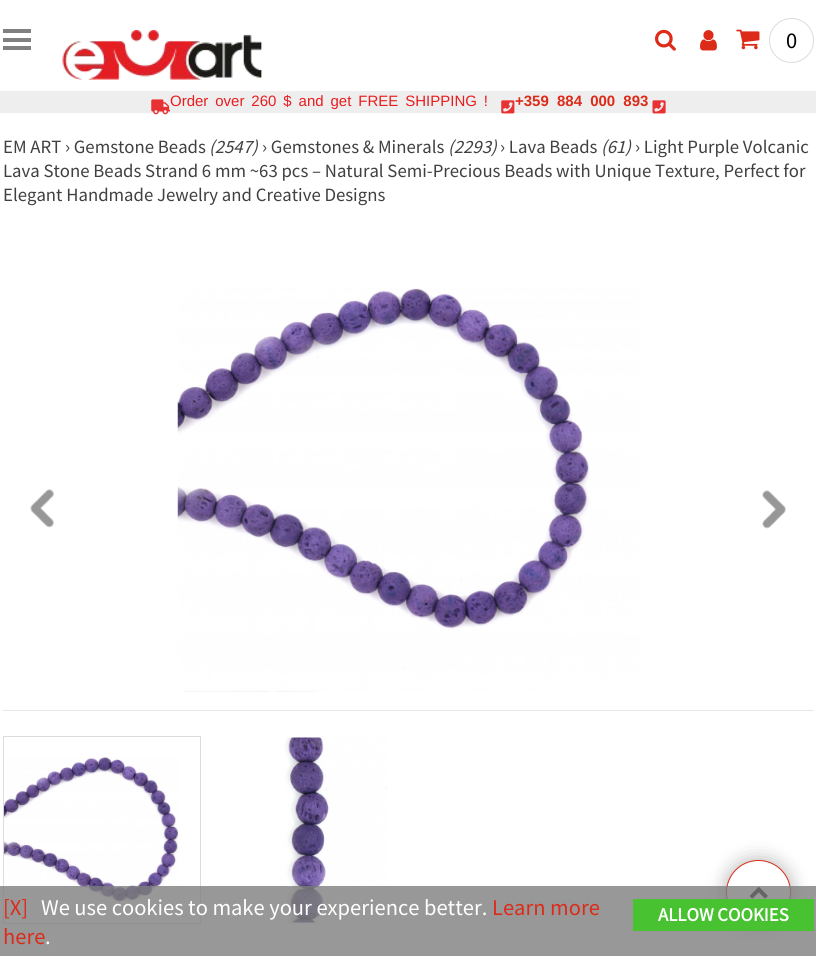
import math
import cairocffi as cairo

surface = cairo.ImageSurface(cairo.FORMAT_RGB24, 816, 956)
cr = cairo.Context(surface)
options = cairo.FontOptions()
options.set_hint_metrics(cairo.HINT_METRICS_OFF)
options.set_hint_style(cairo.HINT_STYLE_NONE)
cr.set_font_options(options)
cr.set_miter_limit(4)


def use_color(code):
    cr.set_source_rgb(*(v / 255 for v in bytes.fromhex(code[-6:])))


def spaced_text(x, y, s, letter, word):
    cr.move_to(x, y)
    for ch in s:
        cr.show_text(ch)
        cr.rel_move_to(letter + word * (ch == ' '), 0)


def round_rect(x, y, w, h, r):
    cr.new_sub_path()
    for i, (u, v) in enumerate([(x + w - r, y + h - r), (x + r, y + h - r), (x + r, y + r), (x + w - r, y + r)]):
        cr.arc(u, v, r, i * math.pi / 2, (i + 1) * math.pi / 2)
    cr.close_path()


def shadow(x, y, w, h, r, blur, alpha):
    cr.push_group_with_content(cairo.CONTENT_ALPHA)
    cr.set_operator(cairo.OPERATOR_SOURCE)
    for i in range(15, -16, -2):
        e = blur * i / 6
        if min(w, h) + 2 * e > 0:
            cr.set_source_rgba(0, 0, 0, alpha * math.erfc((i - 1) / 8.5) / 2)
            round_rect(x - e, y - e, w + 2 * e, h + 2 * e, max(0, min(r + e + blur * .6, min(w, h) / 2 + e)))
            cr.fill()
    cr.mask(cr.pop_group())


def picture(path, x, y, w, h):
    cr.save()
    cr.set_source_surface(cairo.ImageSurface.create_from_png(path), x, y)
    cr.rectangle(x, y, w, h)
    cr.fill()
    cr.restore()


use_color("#ffffff")
cr.paint()
use_color("#808080")
cr.rectangle(3, 38, 28, 4)
cr.fill()
cr.rectangle(3, 29, 28, 4)
cr.fill()
cr.rectangle(3, 46, 28, 4)
cr.fill()
picture("img1.png", 62, 30, 201, 50)
picture("img2.png", 655, 29, 21, 22)
picture("img3.png", 700, 30, 17, 21)
picture("img4.png", 736, 29, 24, 21)
cr.arc(791.5, 40.5, 22, 0, 2 * math.pi)
use_color("#dcdcdc")
cr.set_line_width(1)
cr.stroke()
cr.select_font_face("Source Sans Pro")
cr.set_font_size(22.5)
use_color("#000000")
cr.move_to(786, 48)
cr.show_text("0")
use_color("#eeeeee")
cr.rectangle(0, 91, 816, 22)
cr.fill()
picture("img5.png", 151, 99, 19, 16)
cr.select_font_face("Liberation Sans")
cr.set_font_size(15)
use_color("#e81d1f")
spaced_text(170, 106, "Order over 260 $ and get FREE SHIPPING !", 0, 2.75)
picture("img6.png", 501, 100, 14, 14)
cr.select_font_face("Liberation Sans", cairo.FONT_SLANT_NORMAL, cairo.FONT_WEIGHT_BOLD)
use_color("#dc2b19")
spaced_text(515, 106, "+359 884 000 893", 0, 4)
picture("img7.png", 652, 100, 14, 14)
cr.select_font_face("Source Sans Pro")
cr.set_font_size(18.75)
use_color("#404040")
cr.move_to(3, 153)
cr.show_text("EM ART › Gemstone Beads")
cr.select_font_face("Source Sans Pro", cairo.FONT_SLANT_ITALIC)
cr.move_to(209, 153)
cr.show_text("(2547)")
cr.select_font_face("Source Sans Pro")
cr.move_to(262, 153)
cr.show_text("› Gemstones & Minerals")
cr.select_font_face("Source Sans Pro", cairo.FONT_SLANT_ITALIC)
cr.move_to(448, 153)
cr.show_text("(2293)")
cr.select_font_face("Source Sans Pro")
cr.move_to(500, 153)
cr.show_text("› Lava Beads")
cr.select_font_face("Source Sans Pro", cairo.FONT_SLANT_ITALIC)
cr.move_to(601, 153)
cr.show_text("(61)")
cr.select_font_face("Source Sans Pro")
cr.move_to(635, 153)
cr.show_text("› Light Purple Volcanic")
cr.move_to(3, 177)
cr.show_text("Lava Stone Beads Strand 6 mm ~63 pcs – Natural Semi-Precious Beads with Unique Texture, Perfect for")
cr.move_to(3, 201)
cr.show_text("Elegant Handmade Jewelry and Creative Designs")
picture("img8.png", 179, 691, 461, 1)
picture("img9.png", 177, 288, 463, 403)
use_color("#e6e6e6")
cr.rectangle(3, 710, 811, 1)
cr.fill()
cr.rectangle(3.5, 736.5, 197, 187)
use_color("#dcdcdc")
cr.stroke()
picture("img10.png", 3, 757, 176, 162)
picture("img11.png", 284, 737, 103, 186)
picture("img12.png", 30, 489, 24, 39)
picture("img13.png", 762, 490, 24, 39)
use_color("#000000")
shadow(726, 860, 65, 65, 32.5, 9.5, 0.3)
use_color("#ffffff")
cr.arc(758.5, 892.5, 32, 0, 2 * math.pi)
cr.fill_preserve()
use_color("#dc2b19")
cr.stroke()
picture("img14.png", 749, 887, 19, 12)
cr.set_source_rgba(0.498, 0.498, 0.498, 0.8)
cr.rectangle(0, 886, 816, 70)
cr.fill()
cr.set_font_size(22.5)
use_color("#dc2b19")
cr.move_to(3, 915)
cr.show_text("[X]")
use_color("#ffffff")
cr.move_to(41, 915)
cr.show_text("We use cookies to make your experience better.")
use_color("#dc2b19")
cr.move_to(492, 915)
cr.show_text("Learn more")
cr.move_to(3, 944)
cr.show_text("here")
use_color("#ffffff")
cr.move_to(45, 944)
cr.show_text(".")
use_color("#48c231")
cr.rectangle(633, 899, 181, 32)
cr.fill()
cr.select_font_face("Source Sans Pro", cairo.FONT_SLANT_NORMAL, cairo.FONT_WEIGHT_BOLD)
cr.set_font_size(18.75)
use_color("#ffffff")
cr.move_to(658, 921)
cr.show_text("ALLOW COOKIES")
surface.write_to_png("result.png")
